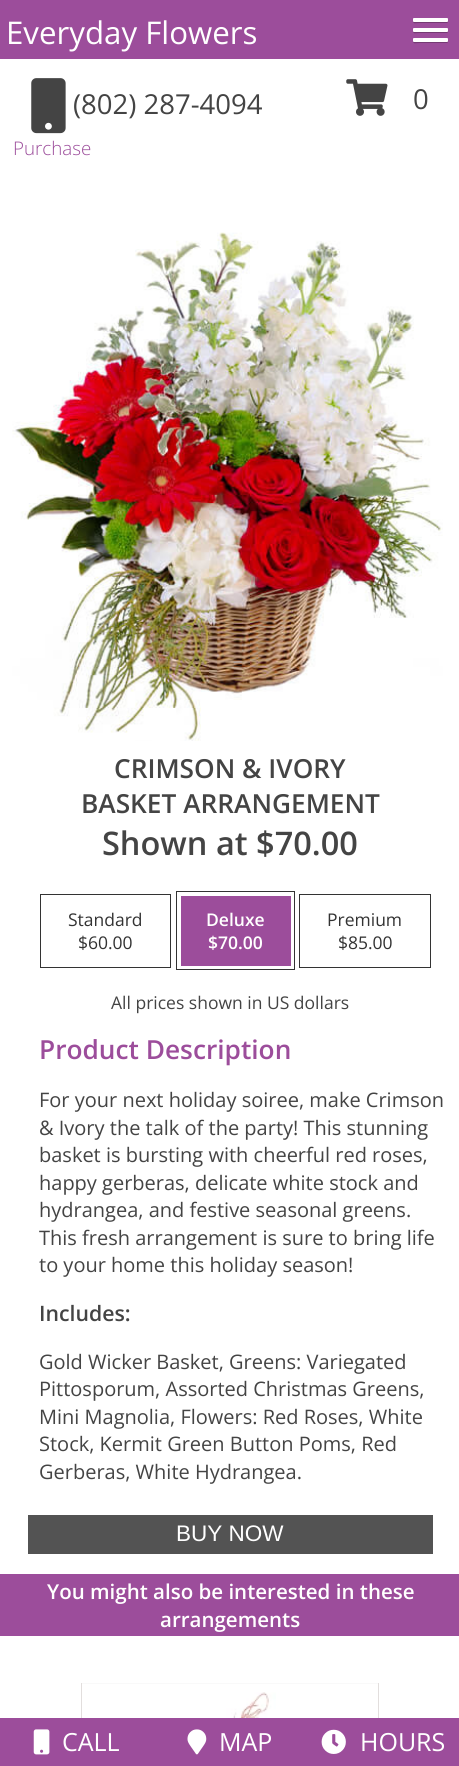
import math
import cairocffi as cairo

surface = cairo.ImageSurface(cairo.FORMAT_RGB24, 459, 1766)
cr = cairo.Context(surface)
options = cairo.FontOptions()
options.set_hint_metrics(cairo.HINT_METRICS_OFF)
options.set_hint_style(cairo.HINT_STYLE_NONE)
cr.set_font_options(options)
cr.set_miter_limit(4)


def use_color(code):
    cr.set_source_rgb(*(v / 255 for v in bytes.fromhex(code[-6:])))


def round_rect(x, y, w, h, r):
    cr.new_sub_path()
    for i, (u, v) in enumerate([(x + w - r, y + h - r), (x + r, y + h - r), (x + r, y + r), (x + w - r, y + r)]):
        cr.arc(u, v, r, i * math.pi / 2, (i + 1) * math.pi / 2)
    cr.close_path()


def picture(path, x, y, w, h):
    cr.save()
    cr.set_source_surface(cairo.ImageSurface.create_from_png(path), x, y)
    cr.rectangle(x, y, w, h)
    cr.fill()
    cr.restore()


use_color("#ffffff")
cr.paint()
use_color("#9c4d9b")
cr.rectangle(0, 0, 459, 59)
cr.fill()
cr.select_font_face("Open Sans")
cr.set_font_size(31.25)
use_color("#ffffff")
cr.move_to(6, 44)
cr.show_text("Everyday Flowers")
use_color("#753a74")
cr.new_path()
cr.move_to(413, 21)
cr.curve_to(413, 24.5, 416, 23, 419.5, 23)
cr.line_to(447, 23)
cr.curve_to(448.5, 22.5, 448.5, 19.5, 447.5, 19)
cr.curve_to(447.5, 22.5, 444, 21, 441, 21)
cr.line_to(430, 21)
cr.curve_to(428, 21, 414, 22, 413, 21)
cr.close_path()
cr.fill()
use_color("#ffffff")
round_rect(413, 18, 35, 4, 1)
cr.fill()
use_color("#753a74")
cr.new_path()
cr.move_to(413, 31)
cr.curve_to(413, 34.5, 416, 33, 419.5, 33)
cr.line_to(447, 33)
cr.curve_to(448.5, 32.5, 448.5, 29.5, 447.5, 29)
cr.curve_to(447.5, 32.5, 444, 31, 441, 31)
cr.line_to(430, 31)
cr.curve_to(428, 31, 414, 32, 413, 31)
cr.close_path()
cr.fill()
use_color("#ffffff")
round_rect(413, 28, 35, 4, 1)
cr.fill()
use_color("#753a74")
cr.new_path()
cr.move_to(413, 41)
cr.curve_to(413, 44.5, 416, 43, 419.5, 43)
cr.line_to(447, 43)
cr.curve_to(448.5, 42.5, 448.5, 39.5, 447.5, 39)
cr.curve_to(447.5, 42.5, 444, 41, 441, 41)
cr.line_to(430, 41)
cr.curve_to(428, 41, 414, 42, 413, 41)
cr.close_path()
cr.fill()
use_color("#ffffff")
round_rect(413, 38, 35, 4, 1)
cr.fill()
picture("img1.png", 31, 78, 35, 56)
cr.set_font_size(27.5)
use_color("#444444")
cr.move_to(73, 114)
cr.show_text("(802) 287-4094")
picture("img2.png", 346, 79, 42, 37)
cr.move_to(413, 109)
cr.show_text("0")
cr.select_font_face("Open Sans Light")
cr.set_font_size(18.75)
use_color("#9c4d9b")
cr.move_to(13, 155)
cr.show_text("Purchase")
picture("img3.png", 12, 232, 431, 509)
cr.select_font_face("Open Sans SemiBold")
cr.set_font_size(26.25)
use_color("#444444")
cr.move_to(114, 778)
cr.show_text("CRIMSON & IVORY")
cr.move_to(81, 813)
cr.show_text("BASKET ARRANGEMENT")
cr.set_font_size(32.5)
cr.move_to(102, 855)
cr.show_text("Shown at $70.00")
cr.rectangle(40.5, 894.5, 130, 73)
use_color("#333333")
cr.set_line_width(1)
cr.stroke()
cr.select_font_face("Open Sans")
cr.set_font_size(17.5)
cr.move_to(68, 926)
cr.show_text("Standard")
cr.move_to(78, 949)
cr.show_text("$60.00")
cr.rectangle(176.5, 891.5, 118, 78)
cr.stroke()
use_color("#9c4d9b")
cr.rectangle(181, 896, 110, 70)
cr.fill()
cr.select_font_face("Open Sans SemiBold")
use_color("#ffffff")
cr.move_to(206, 926)
cr.show_text("Deluxe")
cr.move_to(208, 949)
cr.show_text("$70.00")
cr.rectangle(299.5, 894.5, 131, 73)
use_color("#333333")
cr.stroke()
cr.select_font_face("Open Sans")
cr.move_to(327, 926)
cr.show_text("Premium")
cr.move_to(338, 949)
cr.show_text("$85.00")
use_color("#444444")
cr.move_to(111, 1009)
cr.show_text("All prices shown in US dollars")
cr.select_font_face("Open Sans SemiBold")
cr.set_font_size(26.25)
use_color("#9c4d9b")
cr.move_to(39, 1059)
cr.show_text("Product Description")
cr.select_font_face("Open Sans")
cr.set_font_size(20)
use_color("#444444")
cr.move_to(39, 1107)
cr.show_text("For your next holiday soiree, make Crimson")
cr.move_to(39, 1135)
cr.show_text("& Ivory the talk of the party! This stunning")
cr.move_to(39, 1162)
cr.show_text("basket is bursting with cheerful red roses,")
cr.move_to(39, 1190)
cr.show_text("happy gerberas, delicate white stock and")
cr.move_to(39, 1217)
cr.show_text("hydrangea, and festive seasonal greens.")
cr.move_to(39, 1245)
cr.show_text("This fresh arrangement is sure to bring life")
cr.move_to(39, 1272)
cr.show_text("to your home this holiday season!")
cr.select_font_face("Open Sans SemiBold")
cr.set_font_size(21.25)
cr.move_to(39, 1321)
cr.show_text("Includes:")
cr.select_font_face("Open Sans")
cr.set_font_size(20)
cr.move_to(39, 1369)
cr.show_text("Gold Wicker Basket, Greens: Variegated")
cr.move_to(39, 1396)
cr.show_text("Pittosporum, Assorted Christmas Greens,")
cr.move_to(39, 1424)
cr.show_text("Mini Magnolia, Flowers: Red Roses, White")
cr.move_to(39, 1451)
cr.show_text("Stock, Kermit Green Button Poms, Red")
cr.move_to(39, 1479)
cr.show_text("Gerberas, White Hydrangea.")
use_color("#535353")
cr.rectangle(28, 1515, 405, 39)
cr.fill()
cr.select_font_face("Liberation Sans")
cr.set_font_size(22.5)
use_color("#ffffff")
cr.move_to(176, 1541)
cr.show_text("BUY NOW")
use_color("#9c4d9b")
cr.rectangle(0, 1574, 459, 62)
cr.fill()
cr.select_font_face("Open Sans SemiBold")
cr.set_font_size(20.5)
use_color("#ffffff")
cr.move_to(47, 1599)
cr.show_text("You might also be interested in these")
cr.move_to(160, 1627)
cr.show_text("arrangements")
use_color("#f9f9f9")
cr.rectangle(81, 1683, 298, 1)
cr.fill()
use_color("#e2dedd")
cr.rectangle(378, 1683, 1, 35)
cr.fill()
cr.rectangle(81, 1683, 1, 35)
cr.fill()
picture("img4.png", 191, 1692, 85, 26)
use_color("#9c4d9b")
cr.rectangle(0, 1718, 459, 48)
cr.fill()
picture("img5.png", 33, 1729, 17, 26)
cr.select_font_face("Open Sans")
cr.set_font_size(25)
use_color("#ffffff")
cr.move_to(62, 1751)
cr.show_text("CALL")
picture("img6.png", 187, 1729, 20, 26)
cr.move_to(219, 1751)
cr.show_text("MAP")
picture("img7.png", 321, 1729, 25, 25)
cr.move_to(360, 1751)
cr.show_text("HOURS")
surface.write_to_png("result.png")
